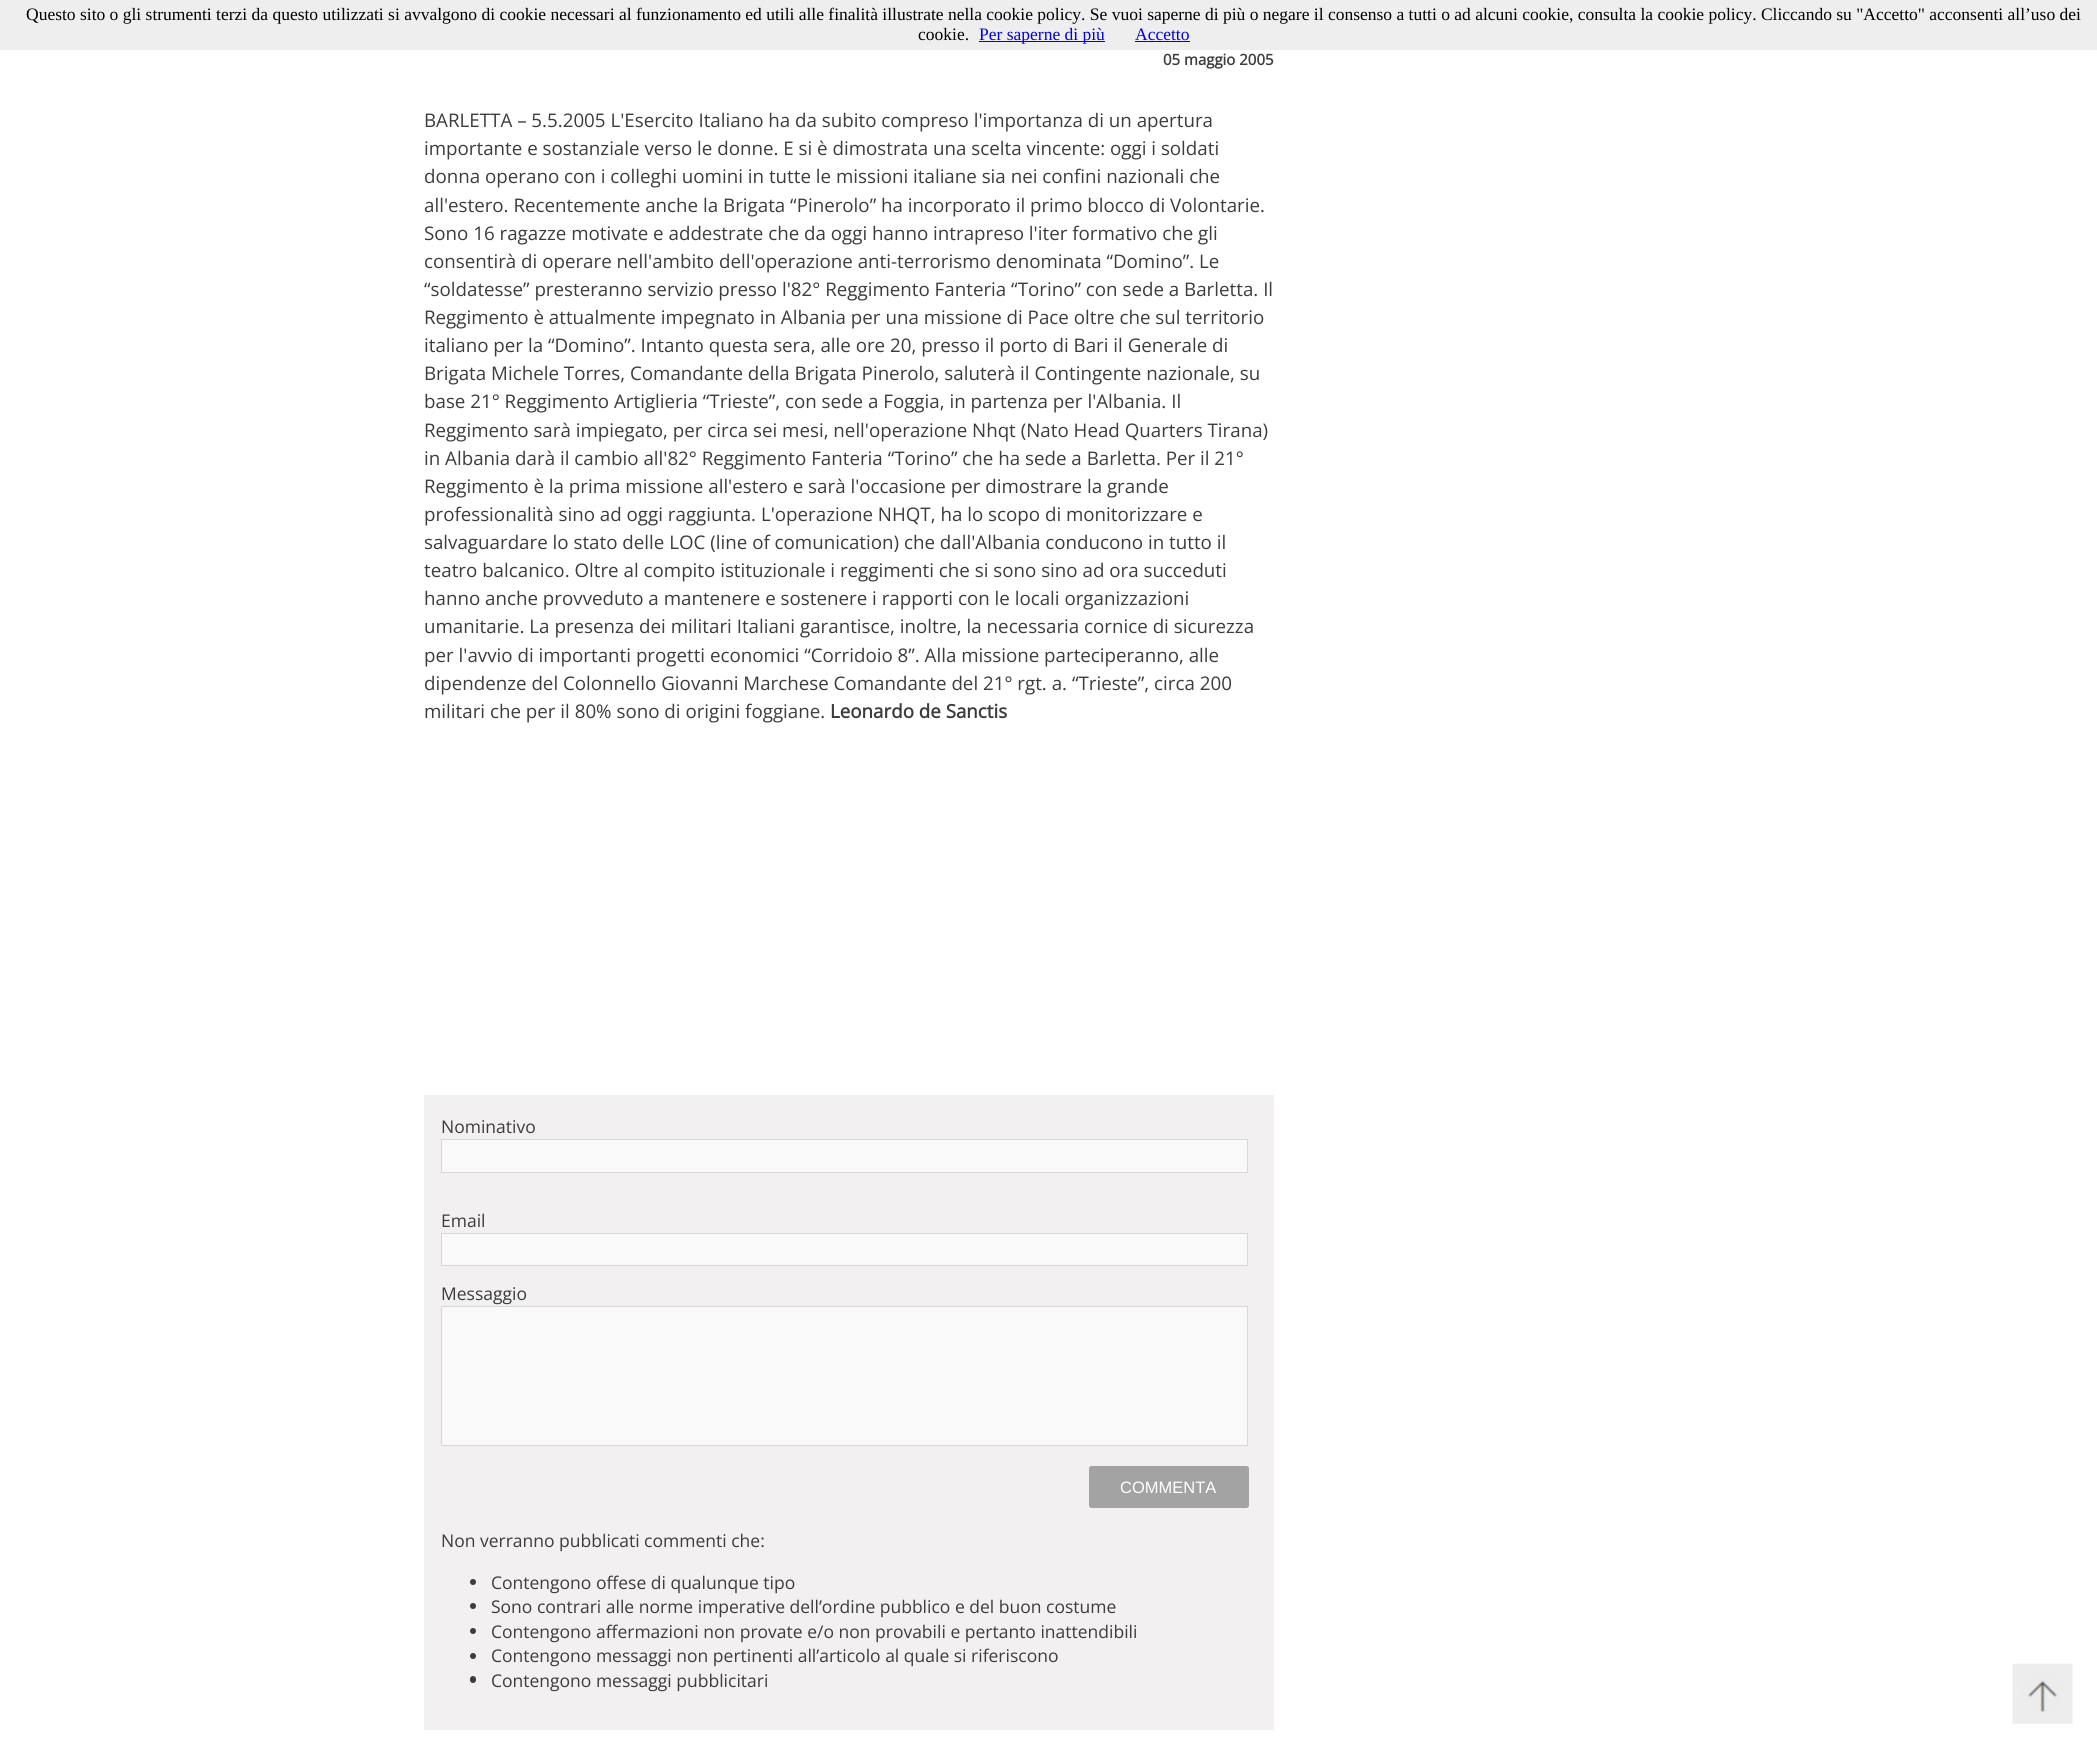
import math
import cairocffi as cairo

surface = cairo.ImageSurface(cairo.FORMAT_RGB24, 2097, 1748)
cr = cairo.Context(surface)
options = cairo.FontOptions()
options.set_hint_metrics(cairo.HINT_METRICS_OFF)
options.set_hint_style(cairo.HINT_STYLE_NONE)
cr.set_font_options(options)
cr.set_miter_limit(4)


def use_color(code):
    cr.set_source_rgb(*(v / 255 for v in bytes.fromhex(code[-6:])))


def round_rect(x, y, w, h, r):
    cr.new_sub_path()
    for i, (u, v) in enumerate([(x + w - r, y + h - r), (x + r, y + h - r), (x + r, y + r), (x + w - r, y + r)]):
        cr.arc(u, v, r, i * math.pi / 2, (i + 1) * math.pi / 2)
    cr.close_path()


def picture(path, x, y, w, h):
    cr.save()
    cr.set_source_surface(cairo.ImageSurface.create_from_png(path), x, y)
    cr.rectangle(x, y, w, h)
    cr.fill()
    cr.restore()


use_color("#ffffff")
cr.paint()
use_color("#eeeeee")
cr.rectangle(0, 0, 2097, 50)
cr.fill()
cr.select_font_face("Liberation Serif")
cr.set_font_size(17.5)
use_color("#000000")
cr.move_to(26, 20)
cr.show_text("Questo sito o gli strumenti terzi da questo utilizzati si avvalgono di cookie necessari al funzionamento ed utili alle finalità illustrate nella cookie policy. Se vuoi saperne di più o negare il consenso a tutti o ad alcuni cookie, consulta la cookie policy. Cliccando su \"Accetto\" acconsenti all’uso dei")
cr.move_to(918, 40)
cr.show_text("cookie.")
use_color("#0000ee")
cr.rectangle(979, 41, 126, 1)
cr.fill()
cr.move_to(979, 40)
cr.show_text("Per saperne di più")
cr.move_to(1135, 40)
cr.show_text("Accetto")
cr.rectangle(1135, 41, 55, 1)
cr.fill()
cr.select_font_face("Open Sans", cairo.FONT_SLANT_NORMAL, cairo.FONT_WEIGHT_BOLD)
cr.set_font_size(15)
use_color("#3c3c3c")
cr.move_to(1163, 65)
cr.show_text("05 maggio 2005")
cr.select_font_face("Open Sans")
cr.set_font_size(18.75)
cr.move_to(424, 127)
cr.show_text("BARLETTA – 5.5.2005 L'Esercito Italiano ha da subito compreso l'importanza di un apertura")
cr.move_to(424, 155)
cr.show_text("importante e sostanziale verso le donne. E si è dimostrata una scelta vincente: oggi i soldati")
cr.move_to(424, 183)
cr.show_text("donna operano con i colleghi uomini in tutte le missioni italiane sia nei confini nazionali che")
cr.move_to(424, 212)
cr.show_text("all'estero. Recentemente anche la Brigata “Pinerolo” ha incorporato il primo blocco di Volontarie.")
cr.move_to(424, 240)
cr.show_text("Sono 16 ragazze motivate e addestrate che da oggi hanno intrapreso l'iter formativo che gli")
cr.move_to(424, 268)
cr.show_text("consentirà di operare nell'ambito dell'operazione anti-terrorismo denominata “Domino”. Le")
cr.move_to(424, 296)
cr.show_text("“soldatesse” presteranno servizio presso l'82° Reggimento Fanteria “Torino” con sede a Barletta. Il")
cr.move_to(424, 324)
cr.show_text("Reggimento è attualmente impegnato in Albania per una missione di Pace oltre che sul territorio")
cr.move_to(424, 352)
cr.show_text("italiano per la “Domino”. Intanto questa sera, alle ore 20, presso il porto di Bari il Generale di")
cr.move_to(424, 380)
cr.show_text("Brigata Michele Torres, Comandante della Brigata Pinerolo, saluterà il Contingente nazionale, su")
cr.move_to(424, 408)
cr.show_text("base 21° Reggimento Artiglieria “Trieste”, con sede a Foggia, in partenza per l'Albania. Il")
cr.move_to(424, 437)
cr.show_text("Reggimento sarà impiegato, per circa sei mesi, nell'operazione Nhqt (Nato Head Quarters Tirana)")
cr.move_to(424, 465)
cr.show_text("in Albania darà il cambio all'82° Reggimento Fanteria “Torino” che ha sede a Barletta. Per il 21°")
cr.move_to(424, 493)
cr.show_text("Reggimento è la prima missione all'estero e sarà l'occasione per dimostrare la grande")
cr.move_to(424, 521)
cr.show_text("professionalità sino ad oggi raggiunta. L'operazione NHQT, ha lo scopo di monitorizzare e")
cr.move_to(424, 549)
cr.show_text("salvaguardare lo stato delle LOC (line of comunication) che dall'Albania conducono in tutto il")
cr.move_to(424, 577)
cr.show_text("teatro balcanico. Oltre al compito istituzionale i reggimenti che si sono sino ad ora succeduti")
cr.move_to(424, 605)
cr.show_text("hanno anche provveduto a mantenere e sostenere i rapporti con le locali organizzazioni")
cr.move_to(424, 633)
cr.show_text("umanitarie. La presenza dei militari Italiani garantisce, inoltre, la necessaria cornice di sicurezza")
cr.move_to(424, 662)
cr.show_text("per l'avvio di importanti progetti economici “Corridoio 8”. Alla missione parteciperanno, alle")
cr.move_to(424, 690)
cr.show_text("dipendenze del Colonnello Giovanni Marchese Comandante del 21° rgt. a. “Trieste”, circa 200")
cr.move_to(424, 718)
cr.show_text("militari che per il 80% sono di origini foggiane.")
cr.select_font_face("Open Sans", cairo.FONT_SLANT_NORMAL, cairo.FONT_WEIGHT_BOLD)
cr.move_to(830, 718)
cr.show_text("Leonardo de Sanctis")
use_color("#f2f0f0")
cr.rectangle(424, 1095, 850, 635)
cr.fill()
cr.select_font_face("Open Sans")
cr.set_font_size(17.5)
use_color("#3c3c3c")
cr.move_to(441, 1133)
cr.show_text("Nominativo")
use_color("#f9f9f9")
cr.rectangle(441.5, 1139.5, 806, 33)
cr.fill_preserve()
use_color("#d7d7d7")
cr.set_line_width(1)
cr.stroke()
use_color("#3c3c3c")
cr.move_to(441, 1227)
cr.show_text("Email")
use_color("#f9f9f9")
cr.rectangle(441.5, 1233.5, 806, 32)
cr.fill_preserve()
use_color("#d7d7d7")
cr.stroke()
use_color("#3c3c3c")
cr.move_to(441, 1300)
cr.show_text("Messaggio")
use_color("#f9f9f9")
cr.rectangle(441.5, 1306.5, 806, 139)
cr.fill_preserve()
use_color("#d7d7d7")
cr.stroke()
use_color("#a3a3a3")
round_rect(1089, 1466, 160, 42, 2.5)
cr.fill()
cr.select_font_face("Liberation Sans")
cr.set_font_size(16.5)
use_color("#ffffff")
cr.move_to(1120, 1493)
cr.show_text("COMMENTA")
cr.select_font_face("Open Sans")
cr.set_font_size(17.5)
use_color("#3c3c3c")
cr.move_to(441, 1547)
cr.show_text("Non verranno pubblicati commenti che:")
cr.new_path()
cr.arc(473, 1582, 3, 0, 2 * math.pi)
cr.fill()
cr.move_to(491, 1589)
cr.show_text("Contengono offese di qualunque tipo")
cr.new_path()
cr.arc(473, 1606, 3, 0, 2 * math.pi)
cr.fill()
cr.move_to(491, 1613)
cr.show_text("Sono contrari alle norme imperative dell’ordine pubblico e del buon costume")
cr.new_path()
cr.arc(473, 1631, 3, 0, 2 * math.pi)
cr.fill()
cr.move_to(491, 1638)
cr.show_text("Contengono affermazioni non provate e/o non provabili e pertanto inattendibili")
cr.new_path()
cr.arc(473, 1656, 3, 0, 2 * math.pi)
cr.fill()
cr.move_to(491, 1662)
cr.show_text("Contengono messaggi non pertinenti all’articolo al quale si riferiscono")
round_rect(470, 1676, 6, 7, 3)
cr.fill()
cr.move_to(491, 1687)
cr.show_text("Contengono messaggi pubblicitari")
picture("img1.png", 2012, 1663, 61, 61)
surface.write_to_png("result.png")
